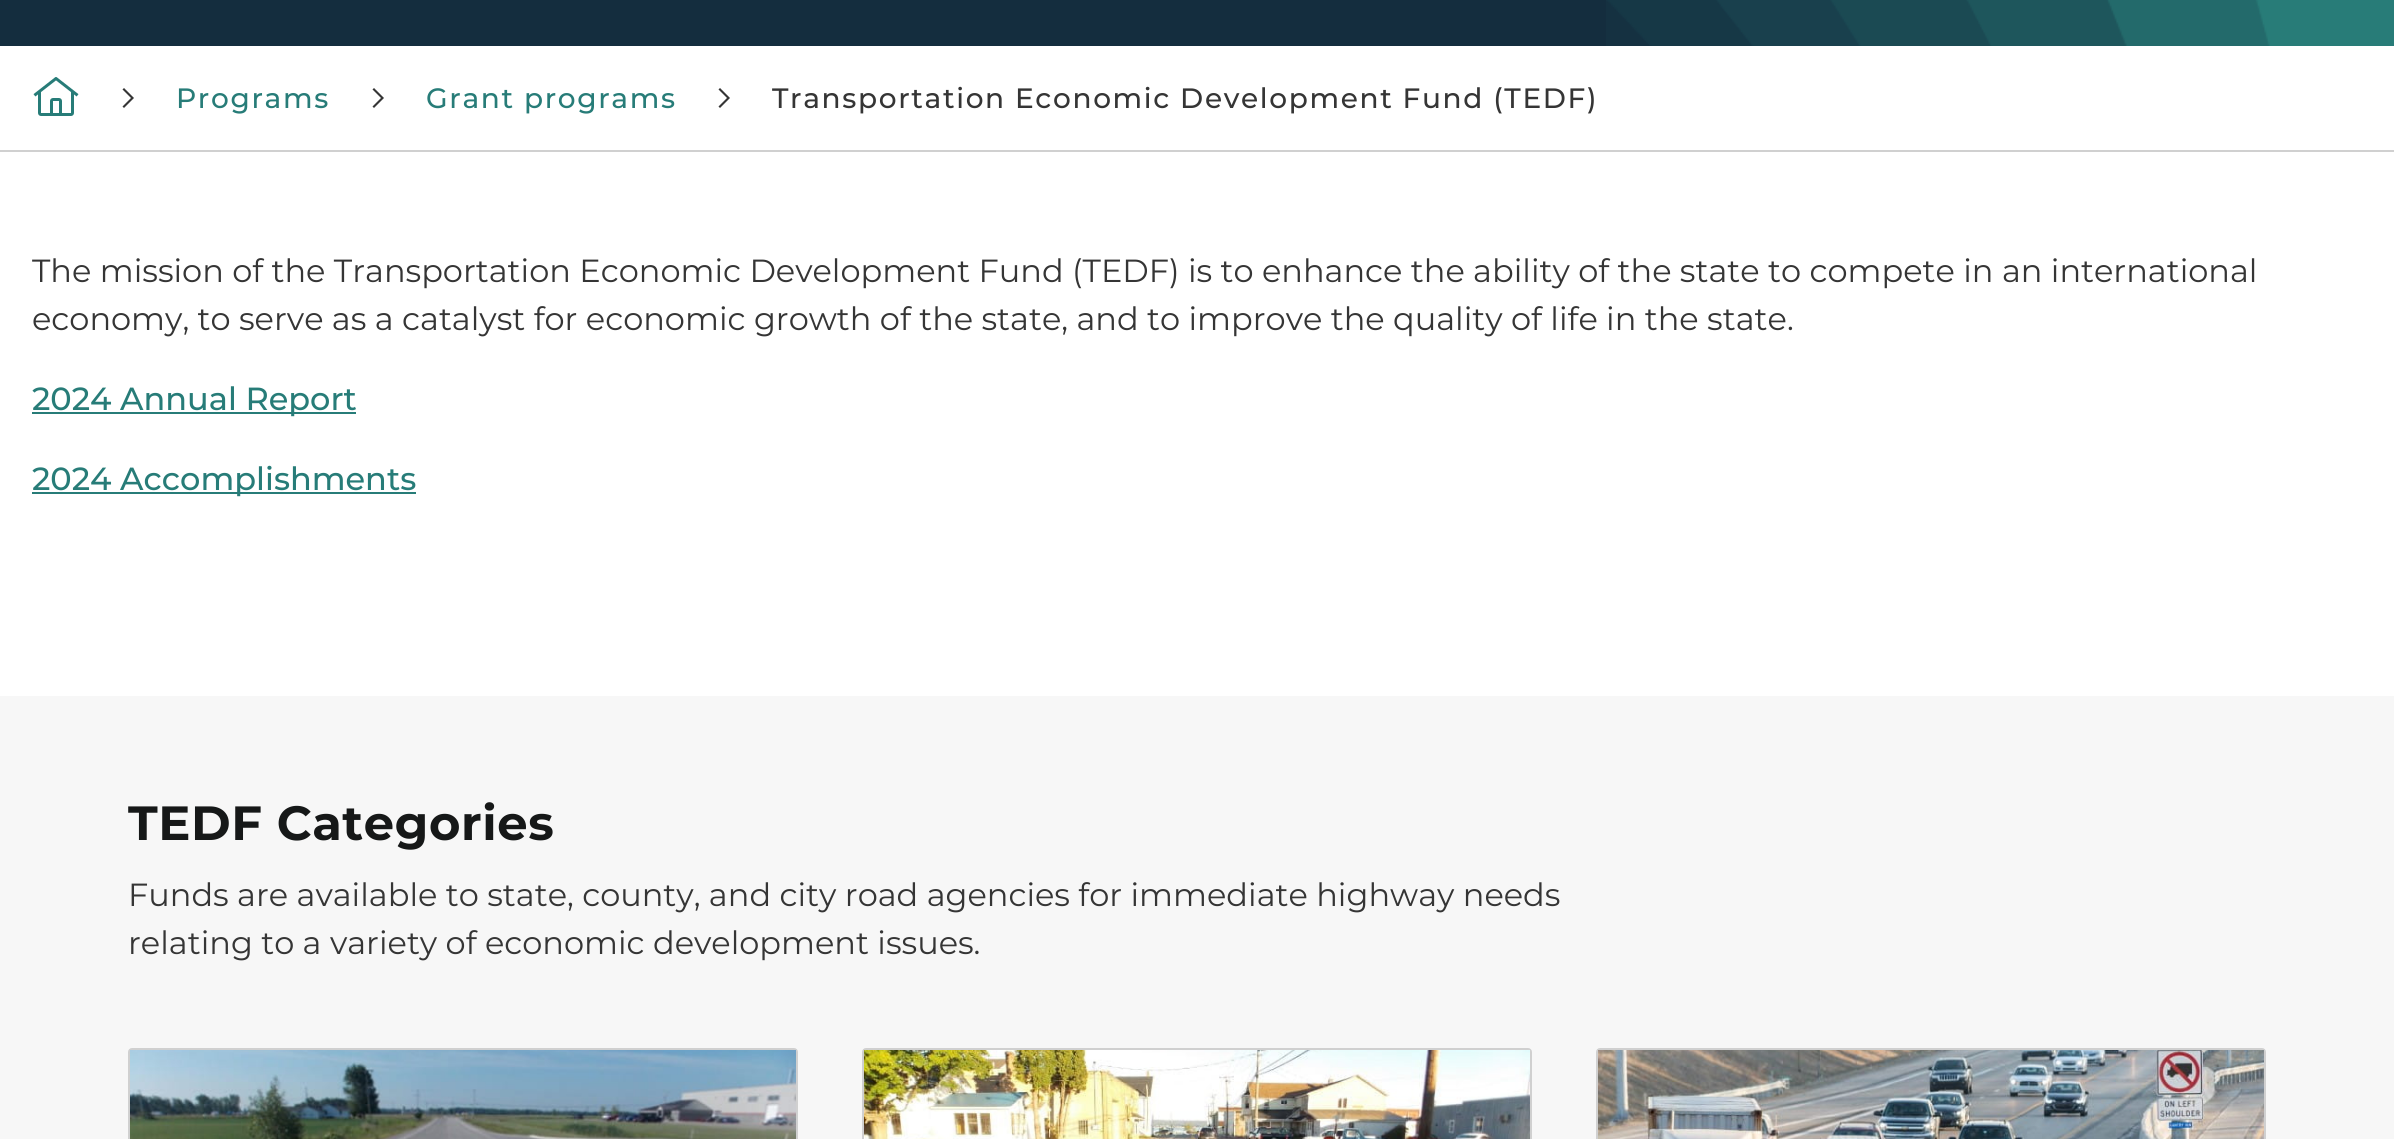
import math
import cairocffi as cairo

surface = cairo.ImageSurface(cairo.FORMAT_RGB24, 2394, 1139)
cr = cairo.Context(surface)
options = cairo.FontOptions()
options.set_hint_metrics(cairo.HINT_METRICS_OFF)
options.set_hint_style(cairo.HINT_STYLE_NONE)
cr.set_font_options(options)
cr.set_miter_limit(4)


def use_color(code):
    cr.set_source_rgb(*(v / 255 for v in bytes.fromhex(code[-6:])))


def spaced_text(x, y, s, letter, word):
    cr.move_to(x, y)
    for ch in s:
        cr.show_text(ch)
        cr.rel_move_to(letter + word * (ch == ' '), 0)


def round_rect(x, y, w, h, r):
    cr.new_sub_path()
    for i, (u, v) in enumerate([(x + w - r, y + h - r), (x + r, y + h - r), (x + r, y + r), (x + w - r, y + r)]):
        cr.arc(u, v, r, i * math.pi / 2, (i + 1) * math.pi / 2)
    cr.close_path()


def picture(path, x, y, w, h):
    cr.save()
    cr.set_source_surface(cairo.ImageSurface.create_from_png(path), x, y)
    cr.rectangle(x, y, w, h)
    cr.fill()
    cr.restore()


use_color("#ffffff")
cr.paint()
use_color("#142d3e")
cr.rectangle(0, 0, 2270, 46)
cr.fill()
picture("img1.png", 1606, 0, 788, 46)
use_color("#d0d0d0")
cr.rectangle(0, 150, 2394, 2)
cr.fill()
picture("img2.png", 33, 77, 46, 39)
use_color("#353535")
cr.new_path()
cr.move_to(134, 98)
cr.line_to(124, 108)
cr.line_to(122.5, 106.5)
cr.line_to(131, 98)
cr.line_to(122.5, 89.5)
cr.line_to(124, 88)
cr.close_path()
cr.fill()
cr.select_font_face("Montserrat Medium")
cr.set_font_size(28)
use_color("#277c78")
spaced_text(176, 108, "Programs", 1.65, 0)
use_color("#353535")
cr.new_path()
cr.move_to(384, 98)
cr.line_to(374, 108)
cr.line_to(372.5, 106.5)
cr.line_to(381, 98)
cr.line_to(372.5, 89.5)
cr.line_to(374, 88)
cr.close_path()
cr.fill()
use_color("#277c78")
spaced_text(426, 108, "Grant programs", 1.65, 0)
use_color("#353535")
cr.new_path()
cr.move_to(730, 98)
cr.line_to(720, 108)
cr.line_to(718.5, 106.5)
cr.line_to(727, 98)
cr.line_to(718.5, 89.5)
cr.line_to(720, 88)
cr.close_path()
cr.fill()
spaced_text(772, 108, "Transportation Economic Development Fund (TEDF)", 1.65, 0)
cr.select_font_face("Montserrat")
cr.set_font_size(32)
cr.move_to(32, 282)
cr.show_text("The mission of the Transportation Economic Development Fund (TEDF) is to enhance the ability of the state to compete in an international")
cr.move_to(32, 330)
cr.show_text("economy, to serve as a catalyst for economic growth of the state, and to improve the quality of life in the state.")
use_color("#277c78")
cr.rectangle(32, 412, 324, 2)
cr.fill()
cr.select_font_face("Montserrat Medium")
cr.move_to(32, 410)
cr.show_text("2024 Annual Report")
cr.rectangle(32, 492, 384, 2)
cr.fill()
cr.move_to(32, 490)
cr.show_text("2024 Accomplishments")
use_color("#f7f7f7")
cr.rectangle(0, 696, 2394, 443)
cr.fill()
cr.select_font_face("Montserrat", cairo.FONT_SLANT_NORMAL, cairo.FONT_WEIGHT_BOLD)
cr.set_font_size(48)
use_color("#161818")
spaced_text(128, 840, "TEDF Categories", 0.6, 0)
cr.select_font_face("Montserrat")
cr.set_font_size(32)
use_color("#353535")
cr.move_to(128, 906)
cr.show_text("Funds are available to state, county, and city road agencies for immediate highway needs")
cr.move_to(128, 954)
cr.show_text("relating to a variety of economic development issues.")
round_rect(129, 1049, 668, 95, 3)
use_color("#d0d0d0")
cr.stroke()
picture("img3.png", 130, 1050, 666, 89)
round_rect(863, 1049, 668, 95, 3)
cr.stroke()
picture("img4.png", 864, 1050, 666, 89)
round_rect(1597, 1049, 668, 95, 3)
cr.stroke()
picture("img5.png", 1598, 1050, 666, 89)
surface.write_to_png("result.png")
